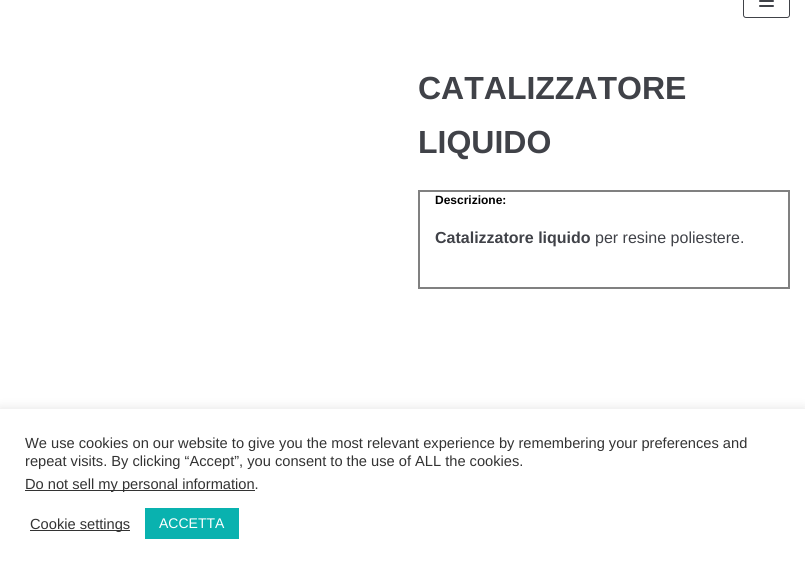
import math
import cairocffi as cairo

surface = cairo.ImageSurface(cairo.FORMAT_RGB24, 805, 569)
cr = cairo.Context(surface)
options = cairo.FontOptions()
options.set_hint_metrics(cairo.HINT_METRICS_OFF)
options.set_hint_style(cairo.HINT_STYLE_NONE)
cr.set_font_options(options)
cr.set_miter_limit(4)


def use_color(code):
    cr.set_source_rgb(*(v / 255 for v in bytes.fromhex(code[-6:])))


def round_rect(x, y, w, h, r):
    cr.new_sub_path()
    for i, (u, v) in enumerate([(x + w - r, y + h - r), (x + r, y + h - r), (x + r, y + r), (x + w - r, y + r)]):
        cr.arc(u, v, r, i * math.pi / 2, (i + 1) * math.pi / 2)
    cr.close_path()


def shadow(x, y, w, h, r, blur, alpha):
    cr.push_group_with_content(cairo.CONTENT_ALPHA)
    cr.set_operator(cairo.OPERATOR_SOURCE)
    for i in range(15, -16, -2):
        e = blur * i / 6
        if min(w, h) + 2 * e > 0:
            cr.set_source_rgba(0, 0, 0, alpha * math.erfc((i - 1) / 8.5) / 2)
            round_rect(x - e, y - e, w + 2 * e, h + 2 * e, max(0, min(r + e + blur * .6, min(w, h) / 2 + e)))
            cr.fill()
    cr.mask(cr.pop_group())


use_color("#ffffff")
cr.paint()
round_rect(743.5, -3.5, 46, 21, 2.5)
use_color("#404248")
cr.set_line_width(1)
cr.stroke()
round_rect(759, 0, 15, 2, 1)
cr.fill()
round_rect(759, 5, 15, 2, 1)
cr.fill()
cr.select_font_face("Liberation Sans", cairo.FONT_SLANT_NORMAL, cairo.FONT_WEIGHT_BOLD)
cr.set_font_size(32)
cr.move_to(418, 99)
cr.show_text("CATALIZZATORE")
cr.move_to(418, 153)
cr.show_text("LIQUIDO")
cr.rectangle(419, 191, 370, 97)
use_color("#808080")
cr.set_line_width(2)
cr.stroke()
cr.set_font_size(12)
use_color("#000000")
cr.move_to(435, 204)
cr.show_text("Descrizione:")
cr.set_font_size(16)
use_color("#404248")
cr.move_to(435, 243)
cr.show_text("Catalizzatore liquido")
cr.select_font_face("Liberation Sans")
cr.move_to(595, 243)
cr.show_text("per resine poliestere.")
use_color("#acabab")
shadow(0, 408, 805, 160, 0, 5, 0.3)
use_color("#ffffff")
cr.rectangle(0, 409, 805, 160)
cr.fill()
cr.set_font_size(14.65)
use_color("#333333")
cr.move_to(25, 448)
cr.show_text("We use cookies on our website to give you the most relevant experience by remembering your preferences and")
cr.move_to(25, 466)
cr.show_text("repeat visits. By clicking “Accept”, you consent to the use of ALL the cookies.")
cr.rectangle(25, 490, 230, 1)
cr.fill()
cr.move_to(25, 489)
cr.show_text("Do not sell my personal information.")
cr.rectangle(30, 530, 100, 1)
cr.fill()
cr.move_to(30, 529)
cr.show_text("Cookie settings")
use_color("#09b2af")
cr.rectangle(145, 508, 94, 31)
cr.fill()
cr.set_font_size(14)
use_color("#ffffff")
cr.move_to(159, 528)
cr.show_text("ACCETTA")
surface.write_to_png("result.png")
